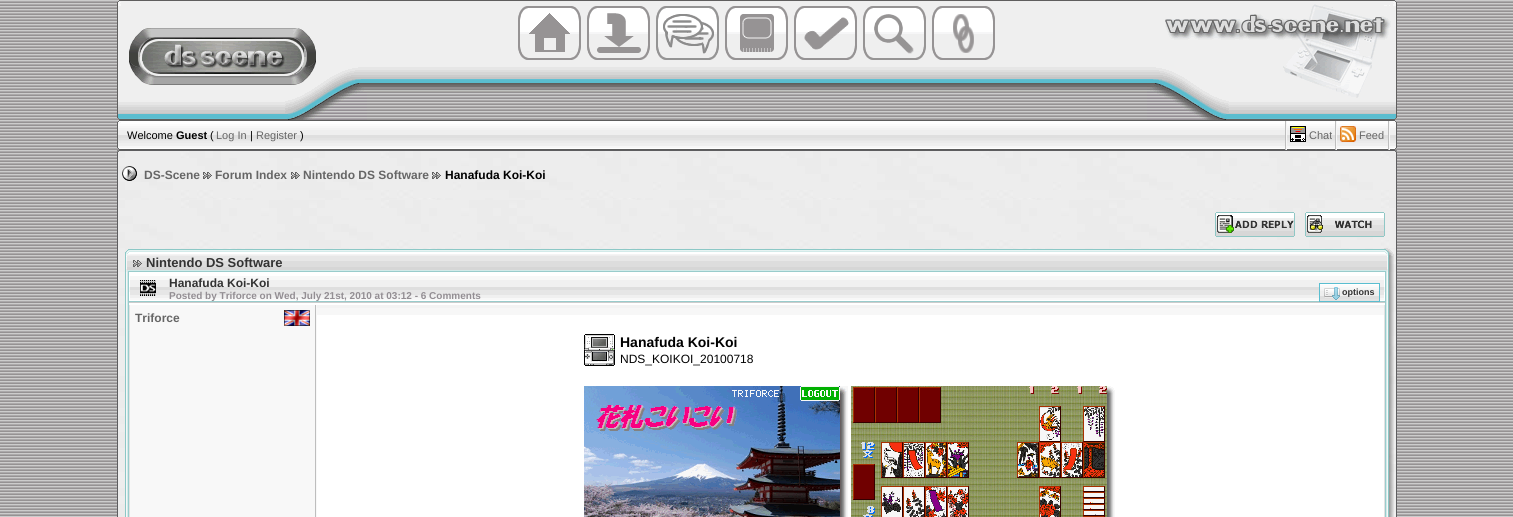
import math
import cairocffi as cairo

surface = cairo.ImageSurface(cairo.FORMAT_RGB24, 1513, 517)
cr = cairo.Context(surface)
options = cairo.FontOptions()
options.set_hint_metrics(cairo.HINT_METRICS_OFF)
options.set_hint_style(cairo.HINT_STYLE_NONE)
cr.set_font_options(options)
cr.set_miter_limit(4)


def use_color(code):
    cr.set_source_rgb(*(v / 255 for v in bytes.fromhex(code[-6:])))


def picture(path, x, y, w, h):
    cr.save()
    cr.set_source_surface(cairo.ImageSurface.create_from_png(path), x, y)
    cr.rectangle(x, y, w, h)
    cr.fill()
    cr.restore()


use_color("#ffffff")
cr.paint()
picture("img1.png", 0, 0, 1513, 517)
picture("img2.png", 117, 0, 250, 120)
picture("img3.png", 367, 0, 780, 92)
picture("img4.png", 518, 6, 63, 54)
picture("img5.png", 587, 6, 63, 54)
picture("img6.png", 656, 6, 63, 54)
picture("img7.png", 725, 6, 63, 54)
picture("img8.png", 794, 6, 63, 54)
picture("img9.png", 863, 6, 63, 54)
picture("img10.png", 932, 6, 63, 54)
picture("img11.png", 1147, 0, 250, 120)
picture("img12.png", 117, 120, 4, 30)
picture("img13.png", 121, 120, 1272, 30)
cr.select_font_face("Liberation Sans")
cr.set_font_size(11)
use_color("#000000")
cr.move_to(127, 139)
cr.show_text("Welcome")
cr.select_font_face("Liberation Sans", cairo.FONT_SLANT_NORMAL, cairo.FONT_WEIGHT_BOLD)
cr.move_to(176, 139)
cr.show_text("Guest")
cr.select_font_face("Liberation Sans")
cr.move_to(210, 139)
cr.show_text("(")
use_color("#666666")
cr.move_to(216, 139)
cr.show_text("Log In")
use_color("#000000")
cr.move_to(250, 139)
cr.show_text("|")
use_color("#666666")
cr.move_to(256, 139)
cr.show_text("Register")
use_color("#000000")
cr.move_to(300, 139)
cr.show_text(")")
picture("img14.png", 1285, 121, 2, 29)
picture("img15.png", 1290, 126, 16, 16)
use_color("#666666")
cr.move_to(1309, 139)
cr.show_text("Chat")
picture("img16.png", 1332, 121, 5, 29)
picture("img17.png", 1340, 126, 16, 16)
cr.move_to(1359, 139)
cr.show_text("Feed")
picture("img14.png", 1388, 121, 2, 29)
picture("img18.png", 1393, 120, 4, 30)
picture("img19.png", 118, 151, 1278, 49)
picture("img20.png", 117, 150, 2, 50)
use_color("#5d5d5f")
cr.rectangle(119, 150, 1276, 1)
cr.fill()
picture("img21.png", 122, 166, 15, 15)
picture("img22.png", 1395, 150, 2, 50)
cr.select_font_face("Liberation Sans", cairo.FONT_SLANT_NORMAL, cairo.FONT_WEIGHT_BOLD)
cr.set_font_size(12)
use_color("#666666")
cr.move_to(144, 179)
cr.show_text("DS-Scene")
picture("img23.png", 203, 172, 9, 7)
cr.move_to(215, 179)
cr.show_text("Forum Index")
picture("img24.png", 291, 172, 9, 7)
cr.move_to(303, 179)
cr.show_text("Nintendo DS Software")
picture("img25.png", 432, 172, 9, 7)
use_color("#000000")
cr.move_to(445, 179)
cr.show_text("Hanafuda Koi-Koi")
picture("img26.png", 118, 200, 1278, 317)
use_color("#5d5d5f")
cr.rectangle(117, 200, 1, 317)
cr.fill()
picture("img27.png", 1215, 212, 80, 25)
picture("img28.png", 1305, 212, 80, 25)
picture("img29.png", 125, 249, 5, 23)
picture("img30.png", 130, 249, 1254, 23)
picture("img31.png", 133, 260, 9, 7)
cr.set_font_size(13)
use_color("#333333")
cr.move_to(146, 267)
cr.show_text("Nintendo DS Software")
picture("img32.png", 1384, 248, 10, 24)
picture("img33.png", 125, 272, 5, 33)
picture("img34.png", 130, 272, 1254, 33)
picture("img35.png", 140, 280, 16, 16)
cr.set_font_size(12)
cr.move_to(169, 287)
cr.show_text("Hanafuda Koi-Koi")
cr.set_font_size(10)
use_color("#938e93")
cr.move_to(169, 299)
cr.show_text("Posted by Triforce on Wed, July 21st, 2010 at 03:12 - 6 Comments")
picture("img36.png", 1320, 284, 59, 17)
cr.rectangle(1319.5, 283.5, 60, 18)
use_color("#5abed0")
cr.set_line_width(1)
cr.stroke()
picture("img37.png", 1324, 287, 16, 13)
cr.set_font_size(9)
use_color("#333333")
cr.move_to(1342, 295)
cr.show_text("options")
picture("img38.png", 1384, 272, 10, 33)
picture("img39.png", 125, 305, 5, 212)
use_color("#f8f8f8")
cr.rectangle(130, 305, 187, 212)
cr.fill()
cr.set_font_size(12)
use_color("#666666")
cr.move_to(135, 322)
cr.show_text("Triforce")
picture("img40.png", 284, 310, 26, 16)
use_color("#bebebe")
cr.rectangle(315, 305, 1, 212)
cr.fill()
use_color("#ffffff")
cr.rectangle(317, 315, 1067, 202)
cr.fill()
picture("img41.png", 317, 305, 1067, 10)
picture("img42.png", 584, 334, 31, 32)
cr.set_font_size(14)
use_color("#000000")
cr.move_to(620, 347)
cr.show_text("Hanafuda Koi-Koi")
cr.select_font_face("Liberation Sans")
cr.set_font_size(12)
cr.move_to(620, 363)
cr.show_text("NDS_KOIKOI_20100718")
picture("img43.png", 584, 386, 264, 131)
picture("img44.png", 851, 386, 264, 131)
picture("img45.png", 1384, 305, 10, 212)
use_color("#5d5d5f")
cr.rectangle(1396, 200, 1, 317)
cr.fill()
surface.write_to_png("result.png")
